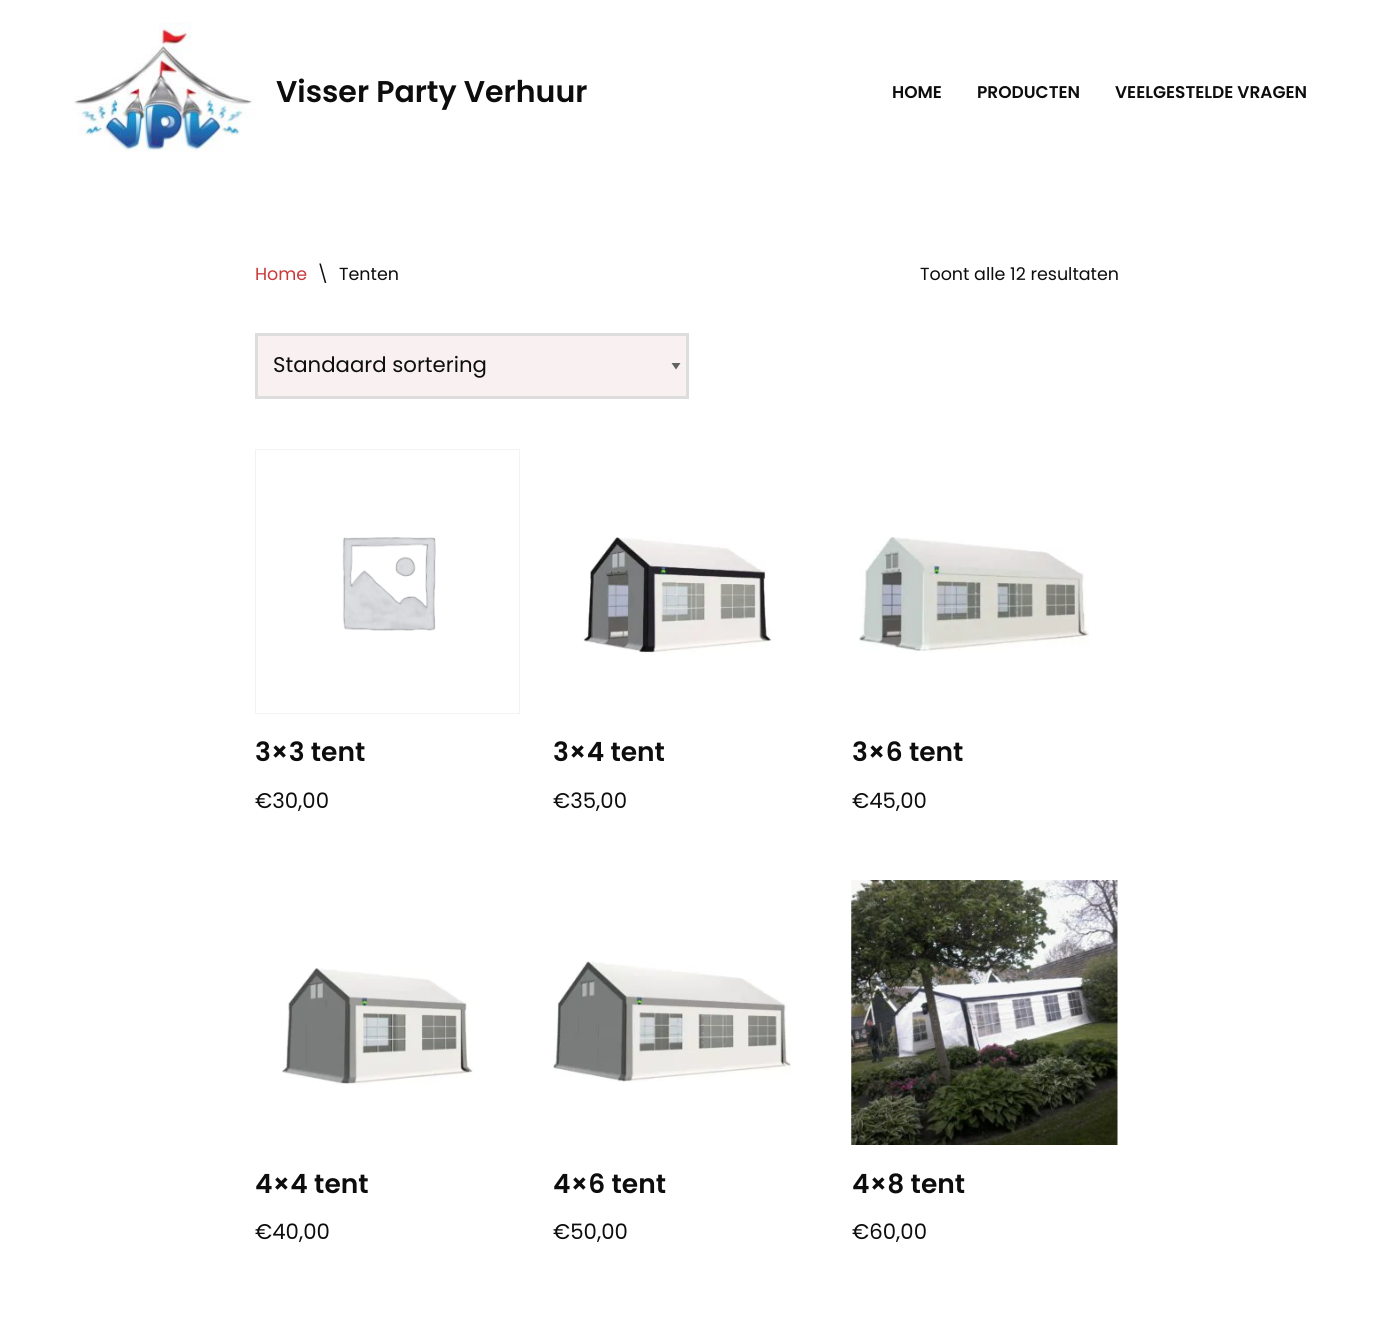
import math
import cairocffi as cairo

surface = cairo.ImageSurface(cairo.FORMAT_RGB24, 1373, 1344)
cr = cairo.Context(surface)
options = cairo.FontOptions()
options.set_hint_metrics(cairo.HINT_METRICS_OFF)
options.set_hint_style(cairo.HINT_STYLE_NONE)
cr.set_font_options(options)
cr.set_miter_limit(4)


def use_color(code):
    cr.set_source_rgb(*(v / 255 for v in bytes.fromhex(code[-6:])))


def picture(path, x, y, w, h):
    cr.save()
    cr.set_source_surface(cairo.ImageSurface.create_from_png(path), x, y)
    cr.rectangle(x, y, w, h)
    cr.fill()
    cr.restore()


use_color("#ffffff")
cr.paint()
picture("img1.png", 74, 22, 182, 130)
cr.select_font_face("Poppins SemiBold")
cr.set_font_size(30)
use_color("#0e0d0d")
cr.move_to(276, 102)
cr.show_text("Visser Party Verhuur")
cr.set_font_size(17)
cr.move_to(892, 98)
cr.show_text("HOME")
cr.move_to(977, 98)
cr.show_text("PRODUCTEN")
cr.move_to(1115, 98)
cr.show_text("VEELGESTELDE VRAGEN")
cr.select_font_face("Poppins")
cr.set_font_size(17.5)
use_color("#c83939")
cr.move_to(255, 280)
cr.show_text("Home")
use_color("#0e0d0d")
cr.move_to(317, 280)
cr.show_text("\\")
cr.move_to(339, 280)
cr.show_text("Tenten")
cr.move_to(920, 280)
cr.show_text("Toont alle 12 resultaten")
use_color("#f9f1f1")
cr.rectangle(258, 336, 428, 60)
cr.fill()
use_color("#626262")
cr.new_path()
cr.move_to(680.5, 363)
cr.line_to(676, 369.5)
cr.line_to(671.5, 363)
cr.close_path()
cr.fill()
cr.rectangle(256.5, 334.5, 431, 63)
use_color("#dddddd")
cr.set_line_width(3)
cr.stroke()
cr.set_font_size(21.25)
use_color("#0e0d0d")
cr.move_to(273, 372)
cr.show_text("Standaard sortering")
cr.rectangle(255.5, 449.5, 264, 264)
use_color("#f2f2f2")
cr.set_line_width(1)
cr.stroke()
picture("img2.png", 342, 537, 94, 94)
cr.select_font_face("Poppins SemiBold")
cr.set_font_size(26.5)
use_color("#0e0d0d")
cr.move_to(255, 761)
cr.show_text("3×3 tent")
cr.select_font_face("Poppins")
cr.set_font_size(21.25)
cr.move_to(255, 808)
cr.show_text("€30,00")
picture("img3.png", 583, 537, 190, 117)
cr.select_font_face("Poppins SemiBold")
cr.set_font_size(26.5)
cr.move_to(553, 761)
cr.show_text("3×4 tent")
cr.select_font_face("Poppins")
cr.set_font_size(21.25)
cr.move_to(553, 808)
cr.show_text("€35,00")
picture("img4.png", 858, 537, 231, 116)
cr.select_font_face("Poppins SemiBold")
cr.set_font_size(26.5)
cr.move_to(852, 761)
cr.show_text("3×6 tent")
cr.select_font_face("Poppins")
cr.set_font_size(21.25)
cr.move_to(852, 808)
cr.show_text("€45,00")
picture("img5.png", 282, 968, 192, 117)
cr.select_font_face("Poppins SemiBold")
cr.set_font_size(26.5)
cr.move_to(255, 1193)
cr.show_text("4×4 tent")
cr.select_font_face("Poppins")
cr.set_font_size(21.25)
cr.move_to(255, 1239)
cr.show_text("€40,00")
picture("img6.png", 553, 961, 238, 121)
cr.select_font_face("Poppins SemiBold")
cr.set_font_size(26.5)
cr.move_to(553, 1193)
cr.show_text("4×6 tent")
cr.select_font_face("Poppins")
cr.set_font_size(21.25)
cr.move_to(553, 1239)
cr.show_text("€50,00")
picture("img7.png", 851, 880, 267, 265)
cr.select_font_face("Poppins SemiBold")
cr.set_font_size(26.5)
cr.move_to(852, 1193)
cr.show_text("4×8 tent")
cr.select_font_face("Poppins")
cr.set_font_size(21.25)
cr.move_to(852, 1239)
cr.show_text("€60,00")
surface.write_to_png("result.png")
